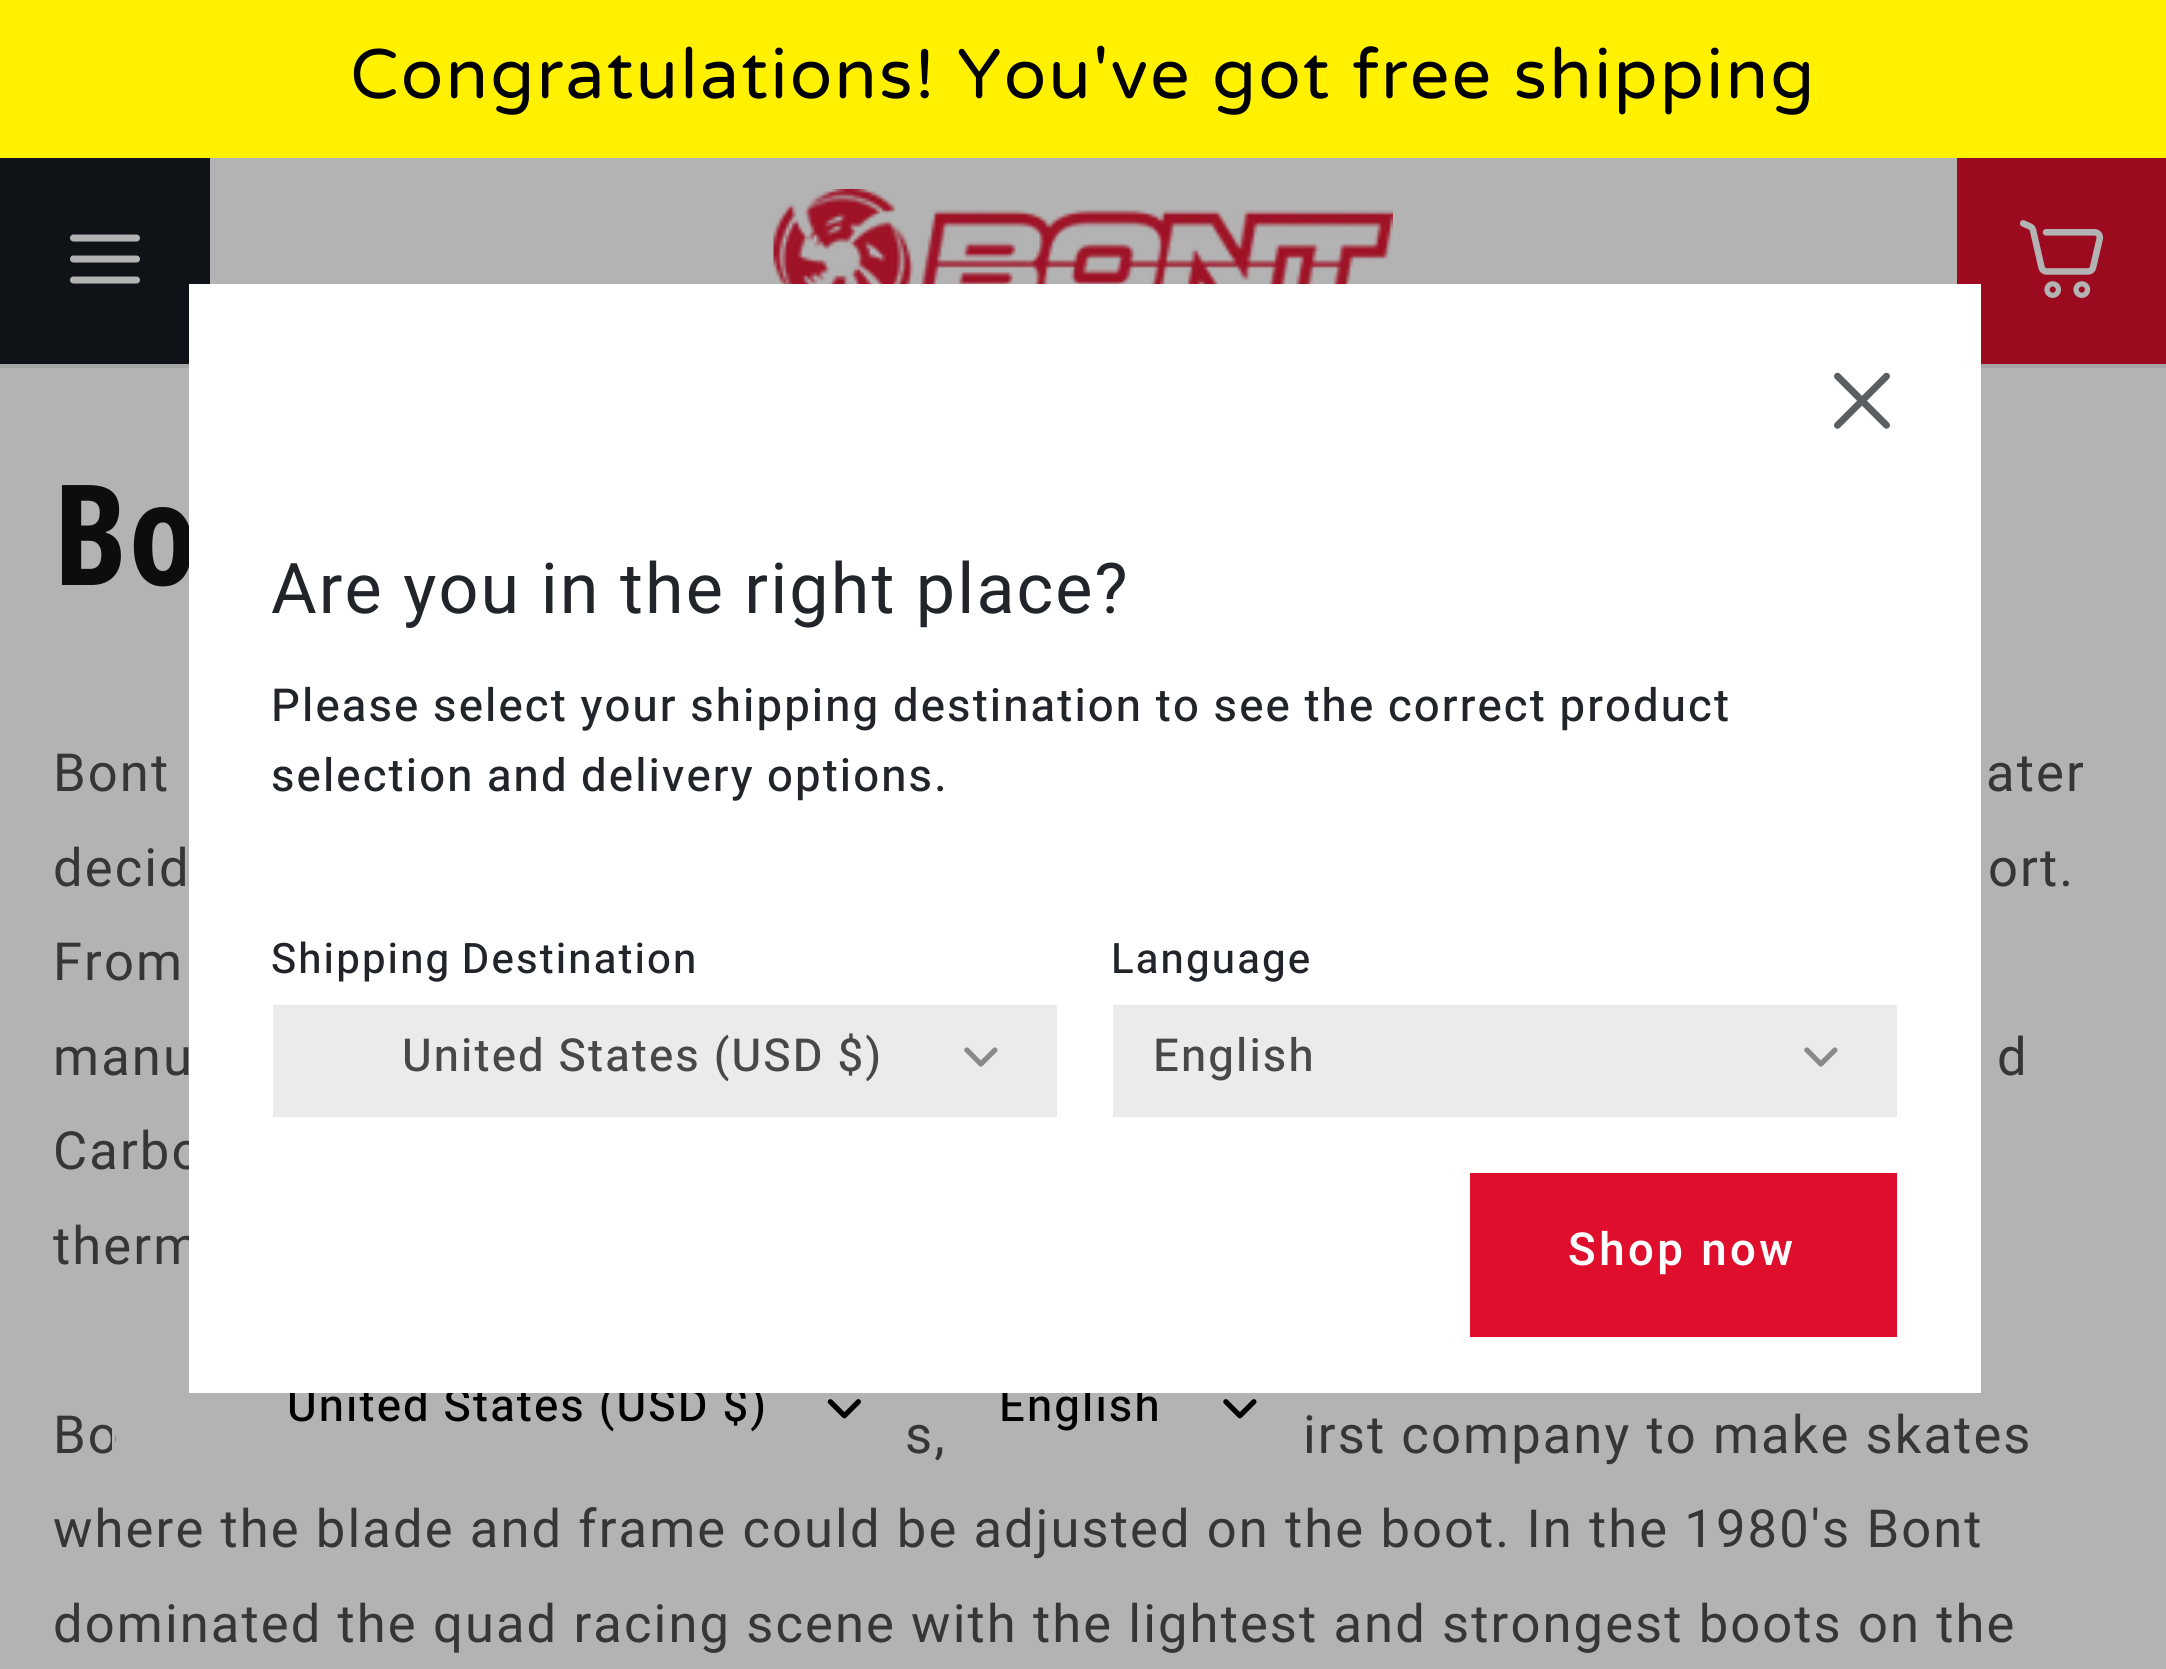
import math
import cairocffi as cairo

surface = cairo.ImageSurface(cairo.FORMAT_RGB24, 2166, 1669)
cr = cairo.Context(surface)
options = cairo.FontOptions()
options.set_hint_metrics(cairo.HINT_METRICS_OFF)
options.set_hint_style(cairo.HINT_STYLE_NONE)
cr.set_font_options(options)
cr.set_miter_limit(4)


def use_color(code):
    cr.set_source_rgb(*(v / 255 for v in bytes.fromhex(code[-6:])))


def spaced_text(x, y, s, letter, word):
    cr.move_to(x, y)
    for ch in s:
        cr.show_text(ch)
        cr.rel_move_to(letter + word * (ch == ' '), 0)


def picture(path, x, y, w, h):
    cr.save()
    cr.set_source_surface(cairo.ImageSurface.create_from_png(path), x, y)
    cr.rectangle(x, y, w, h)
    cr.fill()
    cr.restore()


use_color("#b3b3b3")
cr.paint()
use_color("#fff100")
cr.rectangle(0, 0, 2166, 158)
cr.fill()
cr.select_font_face("Varela Round")
cr.set_font_size(70)
use_color("#000000")
spaced_text(350, 98, "Congratulations! You've got free shipping", 2.1, 0)
use_color("#a5a5a5")
cr.rectangle(0, 364, 2166, 4)
cr.fill()
use_color("#0f1318")
cr.rectangle(0, 158, 210, 206)
cr.fill()
cr.new_path()
cr.move_to(73.5, 259)
cr.line_to(136.5, 259)
use_color("#b3b3b3")
cr.set_line_width(7)
cr.set_line_cap(cairo.LINE_CAP_ROUND)
cr.set_line_join(cairo.LINE_JOIN_ROUND)
cr.stroke()
cr.new_path()
cr.move_to(73.5, 238)
cr.line_to(136.5, 238)
cr.stroke()
cr.new_path()
cr.move_to(73.5, 280)
cr.line_to(136.5, 280)
cr.stroke()
picture("img1.png", 773, 189, 620, 95)
use_color("#9c0a1f")
cr.rectangle(1957, 158, 209, 206)
cr.fill()
picture("img2.png", 2020, 220, 84, 78)
cr.select_font_face("Open Sans Condensed", cairo.FONT_SLANT_NORMAL, cairo.FONT_WEIGHT_BOLD)
cr.set_font_size(140)
use_color("#0d0d0d")
spaced_text(53, 585, "Bo", 2.1, 0)
cr.select_font_face("Roboto")
cr.set_font_size(52.5)
use_color("#363636")
spaced_text(53, 791, "Bont", 2.1, 0)
spaced_text(1986, 791, "ater", 2.1, 0)
spaced_text(53, 886, "decid", 2.1, 0)
spaced_text(1988, 886, "ort.", 2.1, 0)
spaced_text(53, 980, "From", 2.1, 0)
spaced_text(53, 1075, "manu", 2.1, 0)
spaced_text(1997, 1075, "d", 2.1, 0)
spaced_text(53, 1169, "Carbo", 2.1, 0)
spaced_text(53, 1264, "therm", 2.1, 0)
spaced_text(53, 1453, "Bo", 2.1, 0)
spaced_text(905, 1453, "s,", 2.1, 0)
spaced_text(1303, 1453, "irst company to make skates", 2.1, 0)
spaced_text(53, 1547, "where the blade and frame could be adjusted on the boot. In the 1980's Bont", 2.1, 0)
spaced_text(53, 1642, "dominated the quad racing scene with the lightest and strongest boots on the", 2.1, 0)
cr.select_font_face("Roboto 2")
cr.set_font_size(45.5)
use_color("#000000")
spaced_text(287, 1421, "United States (USD $)", 2.1, -0.5)
spaced_text(999, 1421, "English", 2.1, 0)
use_color("#ffffff")
cr.rectangle(189, 284, 1792, 1109)
cr.fill()
picture("img3.png", 1834, 372, 56, 57)
cr.select_font_face("Roboto")
cr.set_font_size(70)
use_color("#212529")
spaced_text(271, 613, "Are you in the right place?", 2.1, 0)
cr.select_font_face("Roboto 2")
cr.set_font_size(45.5)
spaced_text(271, 721, "Please select your shipping destination to see the correct product", 2.1, -0.75)
spaced_text(271, 791, "selection and delivery options.", 2.1, -1)
cr.set_font_size(42)
spaced_text(271, 973, "Shipping Destination", 2.1, -2)
use_color("#ebebeb")
cr.rectangle(273, 1005, 784, 112)
cr.fill()
cr.set_font_size(45.5)
use_color("#484848")
spaced_text(402, 1071, "United States (USD $)", 2.1, -0.5)
picture("img4.png", 964, 1047, 34, 20)
cr.set_font_size(42)
use_color("#212529")
spaced_text(1111, 973, "Language", 2.1, 0)
use_color("#ebebeb")
cr.rectangle(1113, 1005, 784, 112)
cr.fill()
cr.set_font_size(45.5)
use_color("#484848")
spaced_text(1153, 1071, "English", 2.1, 0)
picture("img4.png", 1804, 1047, 34, 20)
use_color("#df0e2c")
cr.rectangle(1470, 1173, 427, 164)
cr.fill()
cr.select_font_face("Roboto Medium")
use_color("#ffffff")
spaced_text(1568, 1265, "Shop now", 3.5, 0)
use_color("#b3b3b3")
cr.rectangle(112, 1429, 3, 20)
cr.fill()
picture("img5.png", 827, 1399, 34, 20)
picture("img6.png", 1223, 1399, 34, 20)
surface.write_to_png("result.png")
